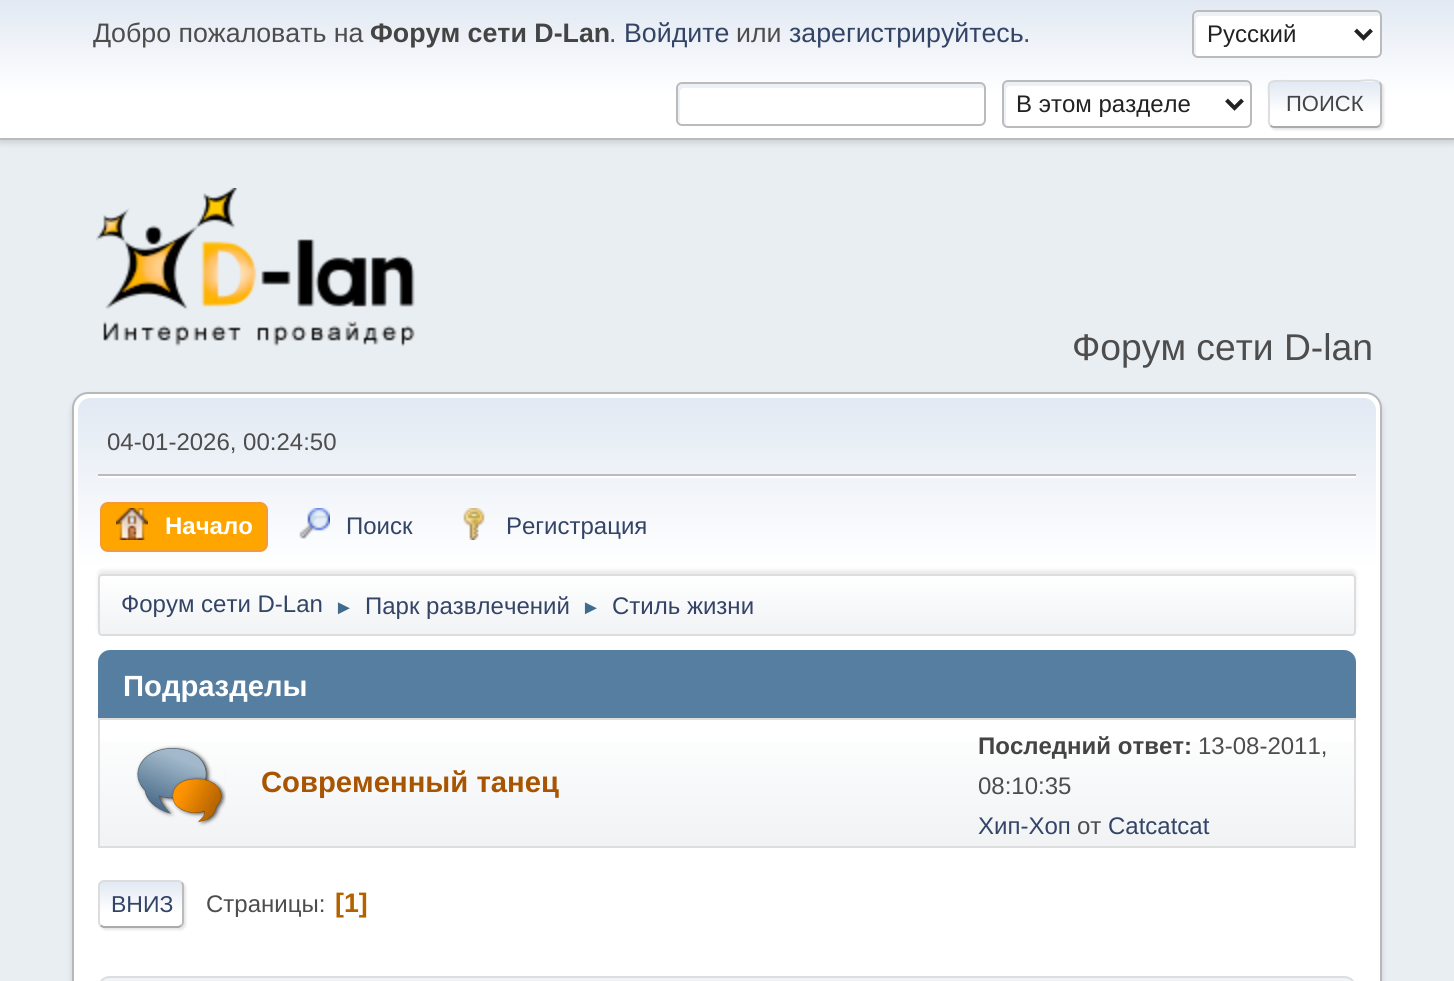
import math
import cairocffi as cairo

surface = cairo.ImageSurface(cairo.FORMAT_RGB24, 1454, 981)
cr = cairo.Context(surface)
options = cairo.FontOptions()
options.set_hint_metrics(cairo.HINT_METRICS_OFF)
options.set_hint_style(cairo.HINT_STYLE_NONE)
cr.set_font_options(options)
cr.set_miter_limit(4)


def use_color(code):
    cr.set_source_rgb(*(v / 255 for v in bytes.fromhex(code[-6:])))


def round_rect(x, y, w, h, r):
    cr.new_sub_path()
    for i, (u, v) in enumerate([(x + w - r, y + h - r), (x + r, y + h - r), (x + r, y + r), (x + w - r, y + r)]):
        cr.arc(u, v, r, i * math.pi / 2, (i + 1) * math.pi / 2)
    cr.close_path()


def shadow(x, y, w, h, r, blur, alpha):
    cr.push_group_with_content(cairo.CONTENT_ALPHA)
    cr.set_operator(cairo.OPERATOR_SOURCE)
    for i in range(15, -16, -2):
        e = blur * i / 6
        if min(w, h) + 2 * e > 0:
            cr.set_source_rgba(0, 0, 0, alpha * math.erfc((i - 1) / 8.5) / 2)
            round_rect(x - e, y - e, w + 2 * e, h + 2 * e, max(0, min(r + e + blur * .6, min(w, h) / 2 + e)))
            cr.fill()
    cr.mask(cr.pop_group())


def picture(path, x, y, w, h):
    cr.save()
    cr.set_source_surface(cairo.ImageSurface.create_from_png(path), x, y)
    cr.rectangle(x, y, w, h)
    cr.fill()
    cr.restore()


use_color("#e9eef2")
cr.paint()
use_color("#000000")
shadow(0, 2, 1454, 140, 0, 4, 0.16)
gradient = cairo.LinearGradient(727, 0, 727, 138)
gradient.add_color_stop_rgba(0, 0.886, 0.914, 0.953, 1)
gradient.add_color_stop_rgba(0.7, 1, 1, 1, 1)
cr.set_source(gradient)
cr.rectangle(0, 0, 1454, 138)
cr.fill()
use_color("#bbbbbb")
cr.rectangle(0, 138, 1454, 2)
cr.fill()
cr.select_font_face("Liberation Sans")
cr.set_font_size(26.75)
use_color("#4d4d4d")
cr.move_to(93, 42)
cr.show_text("Добро пожаловать на")
cr.select_font_face("Liberation Sans", cairo.FONT_SLANT_NORMAL, cairo.FONT_WEIGHT_BOLD)
use_color("#444444")
cr.move_to(370, 42)
cr.show_text("Форум сети D-Lan")
cr.select_font_face("Liberation Sans")
use_color("#4d4d4d")
cr.move_to(609, 42)
cr.show_text(".")
use_color("#334466")
cr.move_to(624, 42)
cr.show_text("Войдите")
use_color("#4d4d4d")
cr.move_to(736, 42)
cr.show_text("или")
use_color("#334466")
cr.move_to(789, 42)
cr.show_text("зарегистрируйтесь")
use_color("#4d4d4d")
cr.move_to(1023, 42)
cr.show_text(".")
use_color("#ffffff")
round_rect(1192, 10, 190, 48, 6)
cr.fill()
use_color("#ecf1f8")
cr.new_path()
cr.move_to(1200, 16)
cr.line_to(1378, 16)
cr.line_to(1380, 17)
cr.line_to(1380, 16)
cr.curve_to(1380, 14, 1378, 12, 1376, 12)
cr.line_to(1198, 12)
cr.curve_to(1196, 12, 1194, 14, 1194, 16)
cr.line_to(1194, 52)
cr.curve_to(1194, 53, 1195, 55, 1196, 55)
cr.line_to(1196, 20)
cr.curve_to(1196, 18, 1198, 16, 1200, 16)
cr.close_path()
cr.fill()
round_rect(1193, 11, 188, 46, 5)
use_color("#bbbbbb")
cr.stroke()
cr.new_path()
cr.move_to(1355.5, 30)
cr.line_to(1363.5, 38)
cr.line_to(1371.5, 30)
use_color("#222222")
cr.set_line_width(4)
cr.stroke()
cr.set_font_size(24)
cr.move_to(1207, 42)
cr.show_text("Русский")
use_color("#ffffff")
round_rect(676, 82, 310, 44, 6)
cr.fill()
use_color("#ecf1f8")
cr.new_path()
cr.move_to(684, 88)
cr.line_to(982, 88)
cr.line_to(984, 89)
cr.line_to(984, 88)
cr.curve_to(984, 86, 982, 84, 980, 84)
cr.line_to(682, 84)
cr.curve_to(680, 84, 678, 86, 678, 88)
cr.line_to(678, 120)
cr.curve_to(678, 121, 679, 123, 680, 123)
cr.line_to(680, 92)
cr.curve_to(680, 90, 682, 88, 684, 88)
cr.close_path()
cr.fill()
round_rect(677, 83, 308, 42, 5)
use_color("#bbbbbb")
cr.set_line_width(2)
cr.stroke()
use_color("#ffffff")
round_rect(1002, 80, 250, 48, 6)
cr.fill()
use_color("#ecf1f8")
cr.new_path()
cr.move_to(1010, 86)
cr.line_to(1248, 86)
cr.line_to(1250, 87)
cr.line_to(1250, 86)
cr.curve_to(1250, 84, 1248, 82, 1246, 82)
cr.line_to(1008, 82)
cr.curve_to(1006, 82, 1004, 84, 1004, 86)
cr.line_to(1004, 122)
cr.curve_to(1004, 123, 1005, 125, 1006, 125)
cr.line_to(1006, 90)
cr.curve_to(1006, 88, 1008, 86, 1010, 86)
cr.close_path()
cr.fill()
round_rect(1003, 81, 248, 46, 5)
use_color("#bbbbbb")
cr.stroke()
cr.new_path()
cr.move_to(1226.5, 100)
cr.line_to(1234.5, 108)
cr.line_to(1242.5, 100)
use_color("#222222")
cr.set_line_width(4)
cr.stroke()
cr.move_to(1016, 112)
cr.show_text("В этом разделе")
use_color("#000000")
shadow(1270, 82, 114, 48, 6, 1, 0.1)
use_color("#ffffff")
round_rect(1268, 80, 114, 48, 6)
cr.fill()
cr.save()
round_rect(1268, 80, 114, 48, 6)
cr.clip()
gradient = cairo.LinearGradient(1325, 82, 1325, 126)
gradient.add_color_stop_rgba(0, 0.886, 0.914, 0.953, 1)
gradient.add_color_stop_rgba(0.7, 1, 1, 1, 1)
cr.set_source(gradient)
cr.rectangle(1268, 82, 114, 44)
cr.fill()
cr.restore()
cr.new_path()
cr.move_to(1379.5, 82.5)
cr.curve_to(1380.5, 83.5, 1381, 84.5, 1381, 86)
cr.line_to(1381, 122)
cr.curve_to(1381, 123.5, 1380.5, 124.5, 1379.5, 125.5)
use_color("#bbbbbb")
cr.set_line_width(2)
cr.stroke()
cr.new_path()
cr.move_to(1379.5, 125.5)
cr.curve_to(1378.5, 126.5, 1377.5, 127, 1376, 127)
cr.line_to(1274, 127)
cr.curve_to(1272.5, 127, 1271.5, 126.5, 1270.5, 125.5)
use_color("#aaaaaa")
cr.stroke()
cr.new_path()
cr.move_to(1270.5, 125.5)
cr.curve_to(1268, 123, 1269, 118.5, 1269, 116)
cr.line_to(1269, 104)
cr.curve_to(1269, 78, 1264.5, 81, 1291, 81)
cr.line_to(1359, 81)
cr.curve_to(1359, 81, 1375.5, 78.5, 1379.5, 82.5)
use_color("#dddddd")
cr.stroke()
cr.set_font_size(22)
use_color("#444444")
cr.move_to(1286, 111)
cr.show_text("ПОИСК")
picture("img1.png", 96, 188, 319, 159)
cr.set_font_size(37.25)
use_color("#4d4d4d")
cr.move_to(1072, 360)
cr.show_text("Форум сети D-lan")
use_color("#000000")
shadow(72, 396, 1310, 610, 16, 3, 0.14)
use_color("#ffffff")
round_rect(73, 393, 1308, 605, 15)
cr.fill_preserve()
use_color("#b8b8b8")
cr.stroke()
gradient = cairo.LinearGradient(727, 398, 727, 640)
gradient.add_color_stop_rgba(0, 0.886, 0.914, 0.953, 1)
gradient.add_color_stop_rgba(0.7, 1, 1, 1, 1)
cr.set_source(gradient)
cr.new_path()
cr.move_to(90, 398)
cr.line_to(1364, 398)
cr.curve_to(1370.5, 398, 1376, 403.5, 1376, 410)
cr.line_to(1376, 640)
cr.line_to(78, 640)
cr.line_to(78, 410)
cr.curve_to(78, 403.5, 83.5, 398, 90, 398)
cr.close_path()
cr.fill()
cr.set_font_size(24)
use_color("#4d4d4d")
cr.move_to(107, 450)
cr.show_text("04-01-2026, 00:24:50")
use_color("#ffffff")
cr.rectangle(98, 476, 1258, 2)
cr.fill()
use_color("#bbbbbb")
cr.rectangle(98, 474, 1258, 2)
cr.fill()
use_color("#ffa500")
round_rect(101, 503, 166, 48, 7)
cr.fill_preserve()
use_color("#f49a3a")
cr.stroke()
picture("img2.png", 116, 508, 32, 32)
cr.select_font_face("Liberation Sans", cairo.FONT_SLANT_NORMAL, cairo.FONT_WEIGHT_BOLD)
use_color("#ffffff")
cr.move_to(165, 534)
cr.show_text("Начало")
picture("img3.png", 299, 508, 31, 31)
cr.select_font_face("Liberation Sans")
use_color("#334466")
cr.move_to(346, 534)
cr.show_text("Поиск")
picture("img4.png", 463, 508, 22, 32)
cr.move_to(506, 534)
cr.show_text("Регистрация")
use_color("#000000")
shadow(98, 570, 1258, 62, 4, 2, 0.08)
cr.save()
round_rect(98, 574, 1258, 62, 4)
cr.clip()
gradient = cairo.LinearGradient(727, 576, 727, 634)
gradient.add_color_stop_rgba(0, 1, 1, 1, 1)
gradient.add_color_stop_rgba(0.95, 0.945, 0.953, 0.961, 1)
cr.set_source(gradient)
cr.rectangle(98, 576, 1258, 58)
cr.fill()
cr.restore()
round_rect(99, 575, 1256, 60, 3)
use_color("#dddddd")
cr.stroke()
use_color("#334466")
cr.move_to(121, 612)
cr.show_text("Форум сети D-Lan")
cr.set_font_size(20)
use_color("#3f6b8c")
cr.move_to(334, 614)
cr.show_text("►")
cr.set_font_size(24)
use_color("#334466")
cr.move_to(365, 614)
cr.show_text("Парк развлечений")
cr.set_font_size(20)
use_color("#3f6b8c")
cr.move_to(581, 614)
cr.show_text("►")
cr.set_font_size(24)
use_color("#334466")
cr.move_to(612, 614)
cr.show_text("Стиль жизни")
use_color("#557ea0")
cr.new_path()
cr.move_to(110, 650)
cr.line_to(1344, 650)
cr.curve_to(1350.5, 650, 1356, 655.5, 1356, 662)
cr.line_to(1356, 720)
cr.line_to(98, 720)
cr.line_to(98, 662)
cr.curve_to(98, 655.5, 103.5, 650, 110, 650)
cr.close_path()
cr.fill()
cr.select_font_face("Liberation Sans", cairo.FONT_SLANT_NORMAL, cairo.FONT_WEIGHT_BOLD)
cr.set_font_size(29.25)
use_color("#ffffff")
cr.move_to(123, 696)
cr.show_text("Подразделы")
gradient = cairo.LinearGradient(727, 720, 727, 846)
gradient.add_color_stop_rgba(0, 1, 1, 1, 1)
gradient.add_color_stop_rgba(0.95, 0.945, 0.953, 0.961, 1)
cr.set_source(gradient)
cr.rectangle(100, 741, 1254, 105)
cr.fill()
cr.rectangle(99, 719, 1256, 128)
use_color("#dddddd")
cr.stroke()
picture("img5.png", 136, 745, 90, 81)
use_color("#a85400")
cr.move_to(261, 792)
cr.show_text("Современный танец")
cr.set_font_size(24)
use_color("#444444")
cr.move_to(978, 754)
cr.show_text("Последний ответ:")
cr.select_font_face("Liberation Sans")
use_color("#4d4d4d")
cr.move_to(1198, 754)
cr.show_text("13-08-2011,")
cr.move_to(978, 794)
cr.show_text("08:10:35")
use_color("#334466")
cr.move_to(978, 834)
cr.show_text("Хип-Хоп")
use_color("#4d4d4d")
cr.move_to(1077, 834)
cr.show_text("от")
use_color("#334466")
cr.move_to(1108, 834)
cr.show_text("Catcatcat")
use_color("#000000")
shadow(100, 882, 86, 48, 6, 1, 0.1)
cr.save()
round_rect(98, 880, 86, 48, 6)
cr.clip()
gradient = cairo.LinearGradient(141, 882, 141, 926)
gradient.add_color_stop_rgba(0, 0.886, 0.914, 0.953, 1)
gradient.add_color_stop_rgba(0.7, 1, 1, 1, 1)
cr.set_source(gradient)
cr.rectangle(98, 882, 86, 44)
cr.fill()
gradient = cairo.LinearGradient(141, 926, 141, 970)
gradient.add_color_stop_rgba(0, 0.886, 0.914, 0.953, 1)
gradient.add_color_stop_rgba(0.7, 1, 1, 1, 1)
cr.set_source(gradient)
cr.rectangle(98, 926, 86, 2)
cr.fill()
cr.restore()
cr.new_path()
cr.move_to(181.5, 882.5)
cr.curve_to(182.5, 883.5, 183, 884.5, 183, 886)
cr.line_to(183, 922)
cr.curve_to(183, 923.5, 182.5, 924.5, 181.5, 925.5)
use_color("#bbbbbb")
cr.stroke()
cr.new_path()
cr.move_to(181.5, 925.5)
cr.line_to(178.5, 927)
cr.line_to(103.5, 927)
cr.line_to(100.5, 925.5)
use_color("#aaaaaa")
cr.stroke()
cr.new_path()
cr.move_to(100.5, 925.5)
cr.curve_to(99.5, 924.5, 99, 923.5, 99, 922)
cr.line_to(99, 886)
cr.curve_to(99, 884.5, 99.5, 883.5, 100.5, 882.5)
cr.curve_to(101.5, 881.5, 102.5, 881, 104, 881)
cr.line_to(178, 881)
cr.curve_to(179.5, 881, 180.5, 881.5, 181.5, 882.5)
use_color("#dddddd")
cr.stroke()
cr.set_font_size(23)
use_color("#334466")
cr.move_to(111, 912)
cr.show_text("ВНИЗ")
cr.set_font_size(24)
use_color("#4d4d4d")
cr.move_to(206, 912)
cr.show_text("Страницы:")
cr.select_font_face("Liberation Sans", cairo.FONT_SLANT_NORMAL, cairo.FONT_WEIGHT_BOLD)
cr.set_font_size(26.75)
use_color("#b46100")
cr.move_to(335, 912)
cr.show_text("[1]")
use_color("#f0f4f7")
cr.new_path()
cr.move_to(110, 976)
cr.line_to(1344, 976)
cr.curve_to(1350.5, 976, 1356, 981.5, 1356, 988)
cr.line_to(1356, 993)
cr.line_to(98, 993)
cr.line_to(98, 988)
cr.curve_to(98, 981.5, 103.5, 976, 110, 976)
cr.close_path()
cr.fill()
use_color("#dddddd")
cr.set_fill_rule(cairo.FILL_RULE_EVEN_ODD)
cr.new_path()
cr.move_to(110, 976)
cr.line_to(1344, 976)
cr.curve_to(1351, 976, 1356, 981, 1356, 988)
cr.line_to(1356, 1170)
cr.line_to(98, 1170)
cr.line_to(98, 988)
cr.curve_to(98, 981, 103, 976, 110, 976)
cr.close_path()
cr.move_to(110, 978)
cr.line_to(1344, 978)
cr.curve_to(1350, 978, 1354, 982, 1354, 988)
cr.line_to(1354, 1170)
cr.line_to(100, 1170)
cr.line_to(100, 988)
cr.curve_to(100, 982, 104, 978, 110, 978)
cr.close_path()
cr.fill()
surface.write_to_png("result.png")
